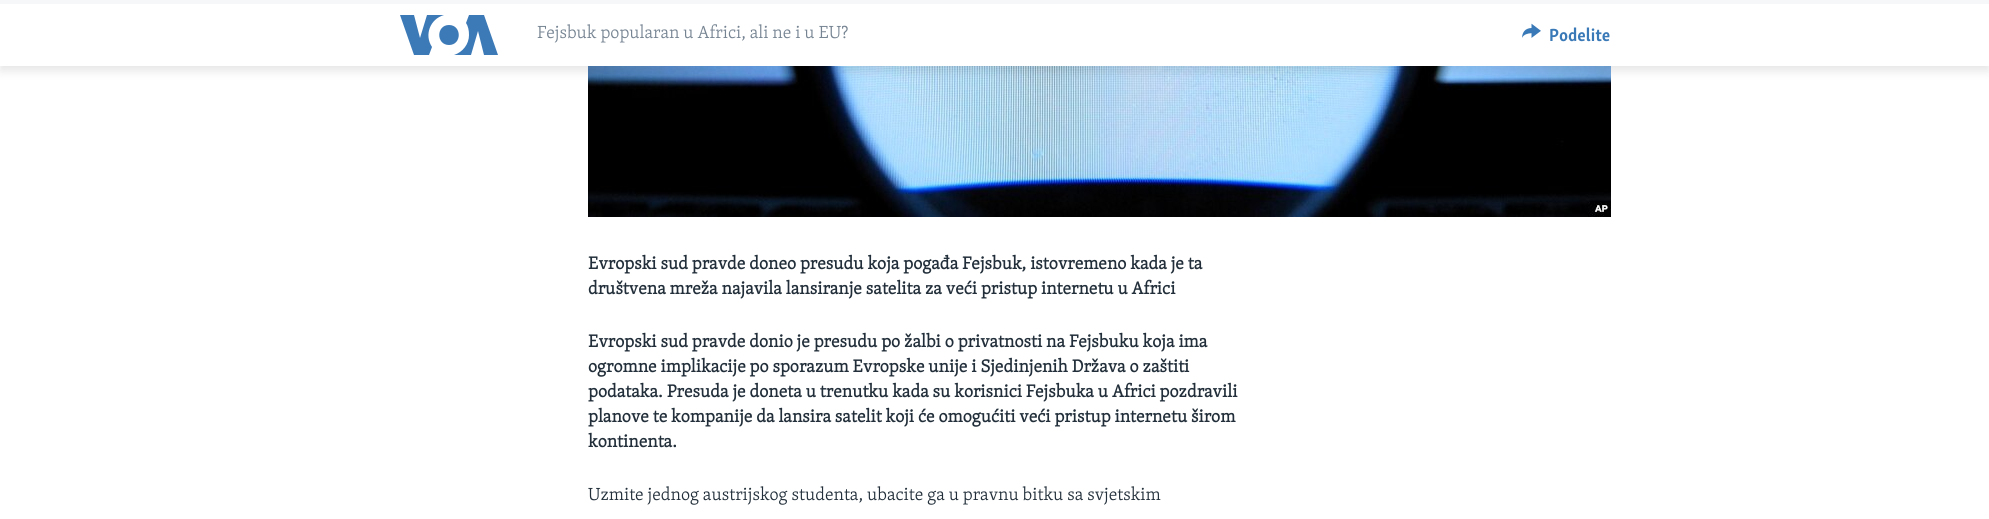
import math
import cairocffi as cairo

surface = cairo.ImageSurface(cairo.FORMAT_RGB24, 1989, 519)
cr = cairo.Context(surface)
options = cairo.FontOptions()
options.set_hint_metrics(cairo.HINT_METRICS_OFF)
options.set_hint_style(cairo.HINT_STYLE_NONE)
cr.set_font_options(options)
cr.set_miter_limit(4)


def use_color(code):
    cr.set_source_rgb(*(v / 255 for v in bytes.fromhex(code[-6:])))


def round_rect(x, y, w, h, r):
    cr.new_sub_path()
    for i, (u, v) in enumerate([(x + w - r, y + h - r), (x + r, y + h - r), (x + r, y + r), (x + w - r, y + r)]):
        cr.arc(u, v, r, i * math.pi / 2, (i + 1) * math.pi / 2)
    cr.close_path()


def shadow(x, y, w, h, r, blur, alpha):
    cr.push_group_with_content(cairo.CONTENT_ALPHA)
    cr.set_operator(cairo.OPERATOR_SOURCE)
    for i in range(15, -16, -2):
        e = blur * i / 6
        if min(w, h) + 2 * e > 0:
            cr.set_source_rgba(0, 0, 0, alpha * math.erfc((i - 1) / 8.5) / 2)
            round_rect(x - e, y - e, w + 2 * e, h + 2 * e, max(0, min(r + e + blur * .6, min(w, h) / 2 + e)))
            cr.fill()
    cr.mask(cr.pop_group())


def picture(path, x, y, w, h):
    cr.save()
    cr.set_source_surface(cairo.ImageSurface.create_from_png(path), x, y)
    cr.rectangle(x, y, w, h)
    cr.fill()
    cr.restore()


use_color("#ffffff")
cr.paint()
picture("img2.png", 588, 66, 1023, 151)
use_color("#000000")
shadow(0, 5, 1989, 66, 0, 5, 0.1)
use_color("#ffffff")
cr.rectangle(0, 4, 1989, 62)
cr.fill()
use_color("#f6f7f8")
cr.rectangle(0, 0, 1989, 4)
cr.fill()
use_color("#3b79b7")
cr.new_path()
cr.move_to(432, 47)
cr.line_to(429, 55)
cr.line_to(414, 55)
cr.line_to(400, 15)
cr.line_to(414, 15)
cr.line_to(420, 38)
cr.line_to(427, 15)
cr.line_to(444, 15)
cr.curve_to(430, 19, 424, 35, 432, 47)
cr.close_path()
cr.move_to(449, 25)
cr.curve_to(436, 25, 436, 45, 449, 45)
cr.curve_to(462, 45, 462, 25, 449, 25)
cr.close_path()
cr.move_to(469, 35)
cr.curve_to(469, 44, 463, 52, 454, 55)
cr.line_to(471, 55)
cr.line_to(478, 31)
cr.line_to(484, 55)
cr.line_to(498, 55)
cr.line_to(484, 15)
cr.line_to(469, 15)
cr.line_to(466, 23)
cr.curve_to(468, 26, 469, 30, 469, 35)
cr.close_path()
cr.fill()
cr.select_font_face("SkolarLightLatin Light")
cr.set_font_size(18)
use_color("#768492")
cr.move_to(537, 38)
cr.show_text("Fejsbuk popularan u Africi, ali ne i u EU?")
picture("img1.png", 1522, 23, 19, 15)
cr.select_font_face("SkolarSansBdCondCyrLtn", cairo.FONT_SLANT_NORMAL, cairo.FONT_WEIGHT_BOLD)
use_color("#3a79b7")
cr.move_to(1549, 41)
cr.show_text("Podelite")
cr.select_font_face("SkolarLightLatin", cairo.FONT_SLANT_NORMAL, cairo.FONT_WEIGHT_BOLD)
use_color("#222f3a")
cr.move_to(588, 269)
cr.show_text("Evropski sud pravde doneo presudu koja pogađa Fejsbuk, istovremeno kada je ta")
cr.move_to(588, 294)
cr.show_text("društvena mreža najavila lansiranje satelita za veći pristup internetu u Africi")
cr.move_to(588, 347)
cr.show_text("Evropski sud pravde donio je presudu po žalbi o privatnosti na Fejsbuku koja ima")
cr.move_to(588, 372)
cr.show_text("ogromne implikacije po sporazum Evropske unije i Sjedinjenih Država o zaštiti")
cr.move_to(588, 397)
cr.show_text("podataka. Presuda je doneta u trenutku kada su korisnici Fejsbuka u Africi pozdravili")
cr.move_to(588, 422)
cr.show_text("planove te kompanije da lansira satelit koji će omogućiti veći pristup internetu širom")
cr.move_to(588, 447)
cr.show_text("kontinenta.")
cr.select_font_face("SkolarLightLatin Light")
cr.move_to(588, 500)
cr.show_text("Uzmite jednog austrijskog studenta, ubacite ga u pravnu bitku sa svjetskim")
surface.write_to_png("result.png")
